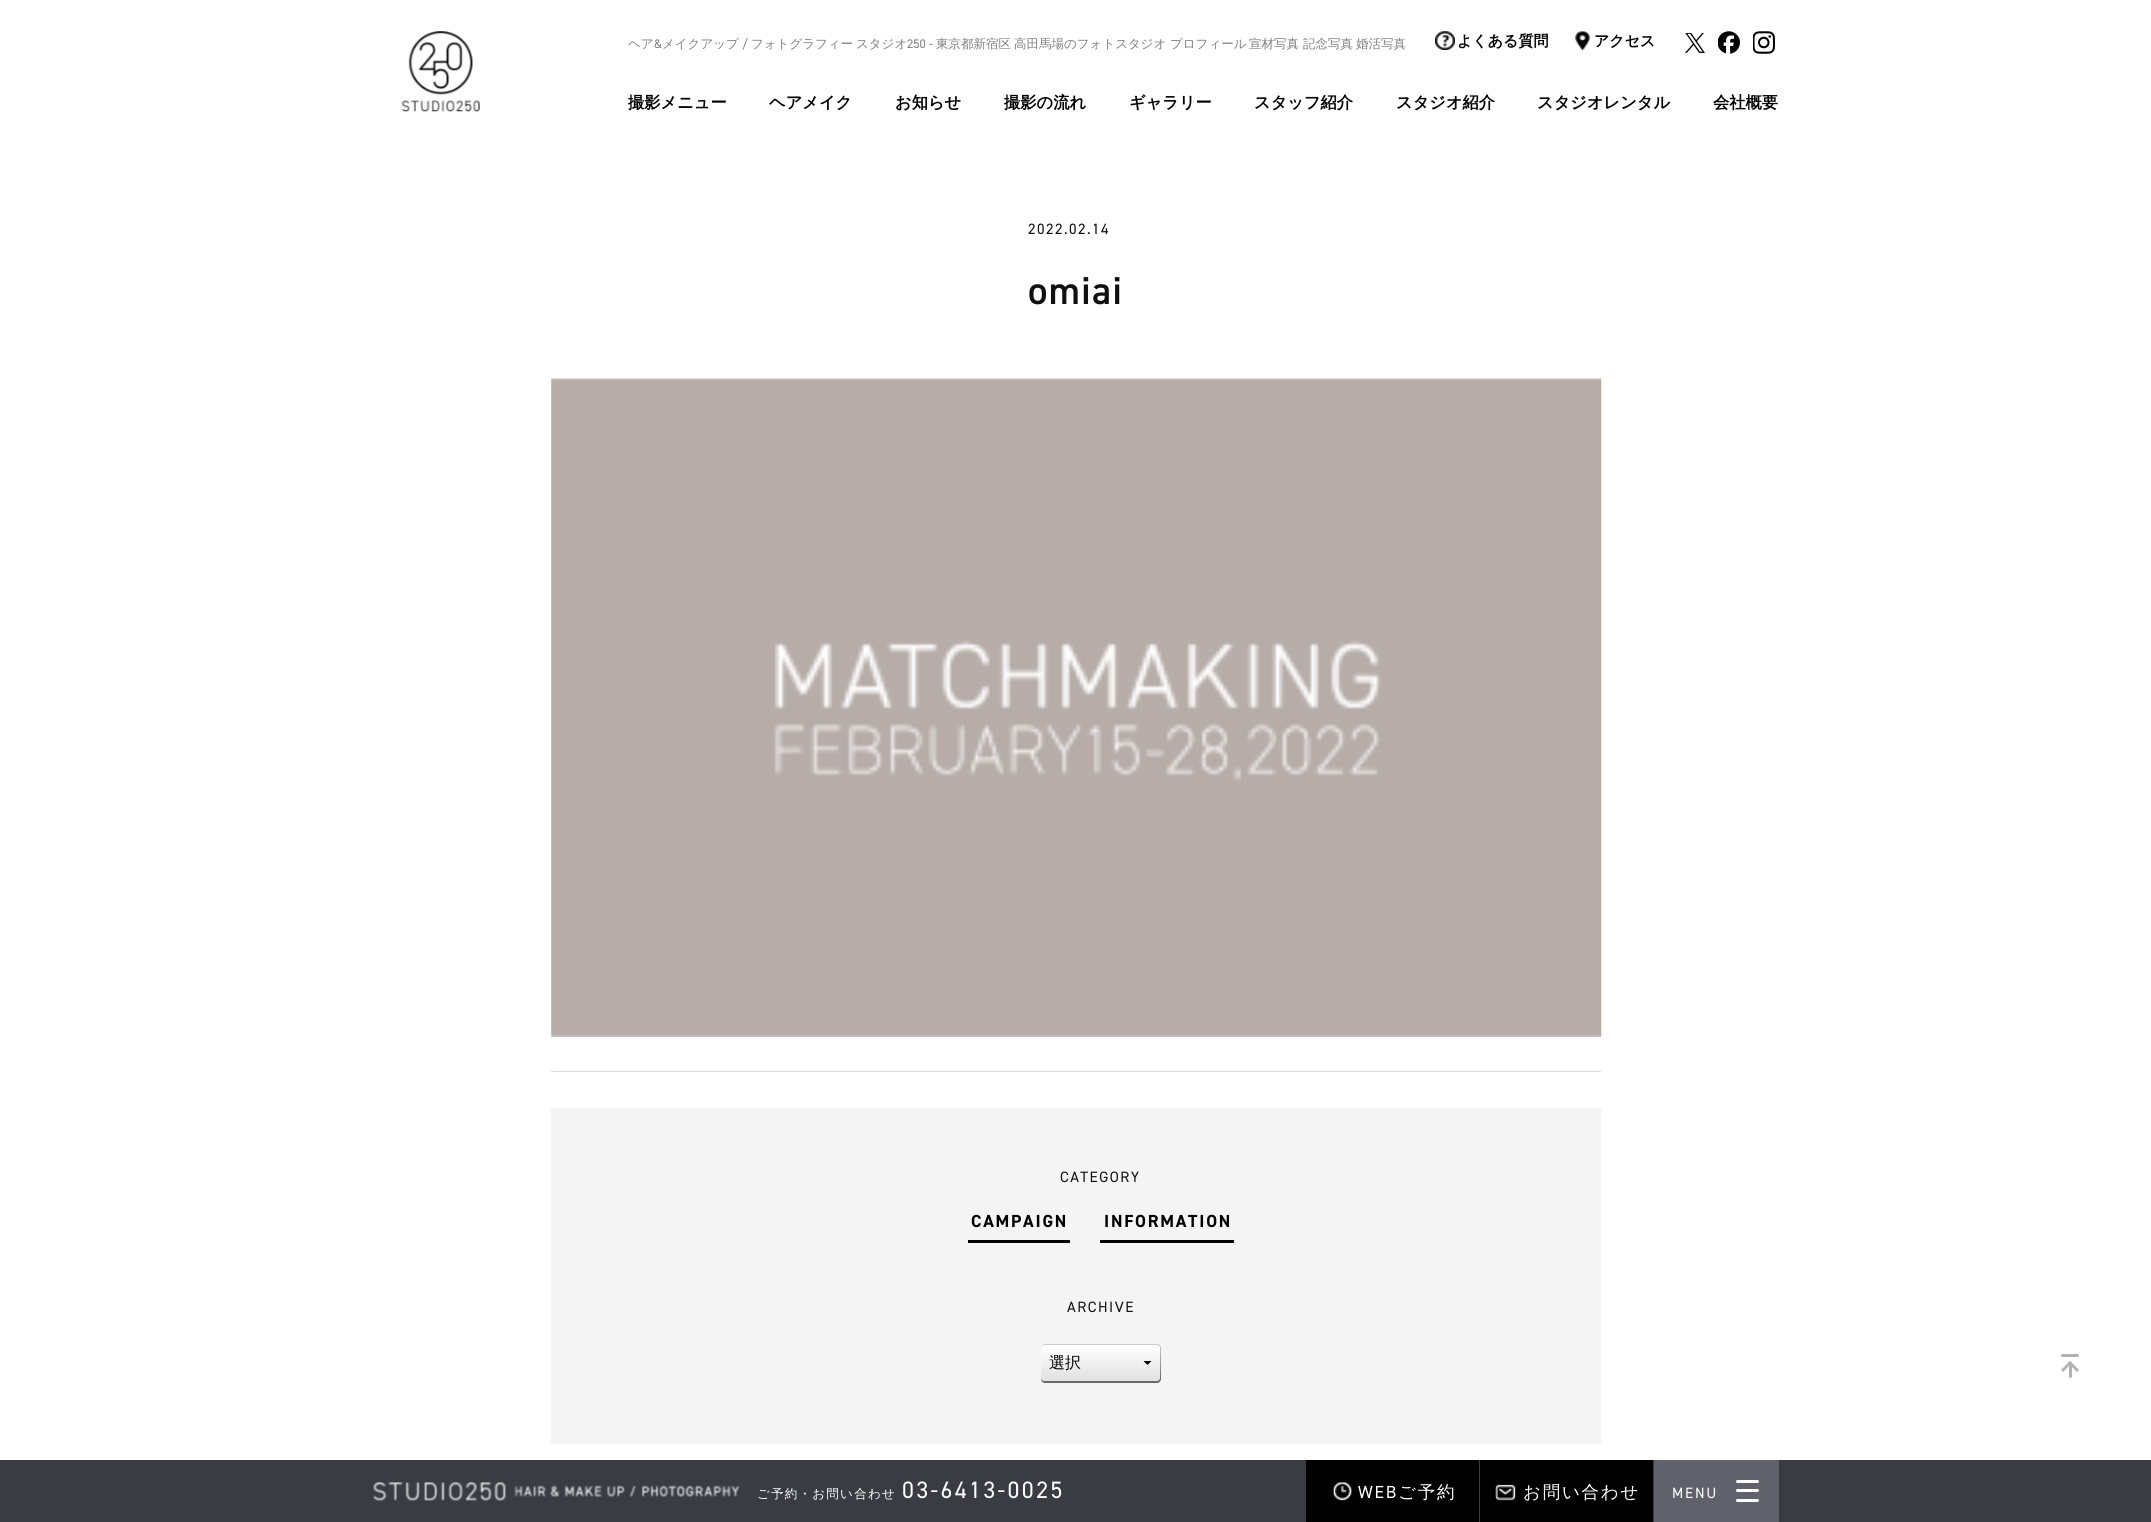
import math
import cairocffi as cairo

surface = cairo.ImageSurface(cairo.FORMAT_RGB24, 2151, 1522)
cr = cairo.Context(surface)
options = cairo.FontOptions()
options.set_hint_metrics(cairo.HINT_METRICS_OFF)
options.set_hint_style(cairo.HINT_STYLE_NONE)
cr.set_font_options(options)
cr.set_miter_limit(4)


def use_color(code):
    cr.set_source_rgb(*(v / 255 for v in bytes.fromhex(code[-6:])))


def spaced_text(x, y, s, letter, word):
    cr.move_to(x, y)
    for ch in s:
        cr.show_text(ch)
        cr.rel_move_to(letter + word * (ch == ' '), 0)


def round_rect(x, y, w, h, r):
    cr.new_sub_path()
    for i, (u, v) in enumerate([(x + w - r, y + h - r), (x + r, y + h - r), (x + r, y + r), (x + w - r, y + r)]):
        cr.arc(u, v, r, i * math.pi / 2, (i + 1) * math.pi / 2)
    cr.close_path()


def picture(path, x, y, w, h):
    cr.save()
    cr.set_source_surface(cairo.ImageSurface.create_from_png(path), x, y)
    cr.rectangle(x, y, w, h)
    cr.fill()
    cr.restore()


use_color("#ffffff")
cr.paint()
picture("img1.png", 401, 31, 79, 81)
cr.select_font_face("WenQuanYi Zen Hei Medium")
cr.set_font_size(12.5)
use_color("#7f7f7f")
cr.move_to(628, 48)
cr.show_text("ヘア")
cr.select_font_face("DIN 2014")
cr.move_to(654, 48)
cr.show_text("&")
cr.select_font_face("WenQuanYi Zen Hei Medium")
cr.move_to(662, 48)
cr.show_text("メイクアップ")
cr.select_font_face("DIN 2014")
cr.move_to(742, 48)
cr.show_text("/")
cr.select_font_face("WenQuanYi Zen Hei Medium")
cr.move_to(751, 48)
cr.show_text("フォトグラフィー")
cr.move_to(856, 48)
cr.show_text("スタジオ")
cr.select_font_face("DIN 2014")
cr.move_to(907, 48)
cr.show_text("250 -")
cr.select_font_face("WenQuanYi Zen Hei Medium")
cr.move_to(936, 48)
cr.show_text("東京都新宿区")
cr.move_to(1014, 48)
cr.show_text("高田馬場のフォトスタジオ")
cr.move_to(1170, 48)
cr.show_text("プロフィール")
cr.move_to(1249, 48)
cr.show_text("宣材写真")
cr.move_to(1303, 48)
cr.show_text("記念写真")
cr.move_to(1356, 48)
cr.show_text("婚活写真")
picture("img2.png", 1435, 31, 20, 19)
cr.select_font_face("WenQuanYi Zen Hei", cairo.FONT_SLANT_NORMAL, cairo.FONT_WEIGHT_BOLD)
cr.set_font_size(15)
use_color("#000000")
cr.move_to(1457, 46)
cr.show_text("よくある質問")
picture("img3.png", 1575, 31, 15, 19)
cr.move_to(1594, 46)
cr.show_text("アクセス")
picture("img4.png", 1685, 33, 20, 20)
picture("img5.png", 1718, 31, 22, 23)
picture("img6.png", 1753, 31, 22, 23)
cr.set_font_size(16.25)
cr.move_to(628, 108)
cr.show_text("撮影メニュー")
cr.move_to(769, 108)
cr.show_text("ヘアメイク")
cr.move_to(895, 108)
cr.show_text("お知らせ")
cr.move_to(1004, 108)
cr.show_text("撮影の流れ")
cr.move_to(1129, 108)
cr.show_text("ギャラリー")
cr.move_to(1254, 108)
cr.show_text("スタッフ紹介")
cr.move_to(1396, 108)
cr.show_text("スタジオ紹介")
cr.move_to(1537, 108)
cr.show_text("スタジオレンタル")
cr.move_to(1713, 108)
cr.show_text("会社概要")
cr.select_font_face("DIN 2014")
cr.set_font_size(15)
use_color("#101010")
spaced_text(1028, 234, "2022.02.14", 1.5, 0)
cr.select_font_face("DIN 2014 SemiBold")
cr.set_font_size(39)
spaced_text(1028, 304, "omiai", 1.25, 0)
use_color("#e0dad3")
cr.rectangle(551, 1071, 1050, 1)
cr.fill()
picture("img7.png", 551, 378, 1051, 659)
use_color("#f4f4f4")
cr.rectangle(551, 1108, 1050, 336)
cr.fill()
cr.select_font_face("DIN 2014")
cr.set_font_size(15)
use_color("#101010")
spaced_text(1060, 1182, "CATEGORY", 1.5, 0)
cr.select_font_face("DIN 2014", cairo.FONT_SLANT_NORMAL, cairo.FONT_WEIGHT_BOLD)
cr.set_font_size(17.5)
use_color("#000000")
spaced_text(971, 1227, "CAMPAIGN", 1.75, 0)
cr.rectangle(968, 1240, 102, 3)
cr.fill()
spaced_text(1104, 1227, "INFORMATION", 1.75, 0)
cr.rectangle(1100, 1240, 134, 3)
cr.fill()
cr.select_font_face("DIN 2014")
cr.set_font_size(15)
use_color("#101010")
spaced_text(1067, 1312, "ARCHIVE", 1.5, 0)
gradient = cairo.LinearGradient(1101, 1344, 1101, 1382)
gradient.add_color_stop_rgba(0, 0.8, 0.8, 0.8, 1)
gradient.add_color_stop_rgba(1, 0.408, 0.408, 0.408, 1)
cr.set_source(gradient)
round_rect(1041, 1344, 120, 39, 4)
cr.fill()
gradient = cairo.LinearGradient(1101, 1345, 1101, 1381)
gradient.add_color_stop_rgba(0, 1, 1, 1, 1)
gradient.add_color_stop_rgba(1, 0.882, 0.882, 0.882, 1)
cr.set_source(gradient)
round_rect(1041, 1345, 119, 36, 3)
cr.fill()
cr.select_font_face("WenQuanYi Zen Hei Medium")
cr.set_font_size(16)
use_color("#000000")
cr.move_to(1049, 1368)
cr.show_text("選択")
cr.new_path()
cr.move_to(1143.5, 1361)
cr.line_to(1151.5, 1361)
cr.line_to(1147.5, 1365)
cr.close_path()
cr.fill()
use_color("#b1b1b1")
round_rect(2061, 1354, 18, 3, 1.5)
cr.fill()
cr.new_path()
cr.move_to(2061, 1370)
cr.line_to(2070, 1361)
cr.line_to(2072, 1363)
cr.line_to(2063, 1372)
cr.close_path()
cr.fill()
cr.new_path()
cr.move_to(2068, 1363)
cr.line_to(2070, 1361)
cr.line_to(2079, 1370)
cr.line_to(2077, 1372)
cr.close_path()
cr.fill()
round_rect(2069, 1365, 3, 13, 1.5)
cr.fill()
use_color("#3b3b44")
cr.rectangle(0, 1460, 2151, 62)
cr.fill()
picture("img8.png", 373, 1482, 367, 19)
cr.set_font_size(12.5)
use_color("#ffffff")
spaced_text(757, 1498, "ご予約・お問い合わせ", 1.25, 0)
cr.select_font_face("DIN 2014")
cr.set_font_size(23.75)
spaced_text(902, 1498, "03-6413-0025", 2.4, 0)
use_color("#000000")
cr.rectangle(1306, 1460, 173, 62)
cr.fill()
picture("img9.png", 1333, 1482, 19, 19)
cr.set_font_size(17.5)
use_color("#ffffff")
spaced_text(1358, 1498, "WEB", 1.75, 0)
cr.select_font_face("WenQuanYi Zen Hei Medium")
spaced_text(1398, 1498, "ご予約", 1.75, 0)
use_color("#000000")
cr.rectangle(1480, 1460, 173, 62)
cr.fill()
picture("img10.png", 1495, 1484, 21, 17)
use_color("#ffffff")
spaced_text(1523, 1498, "お問い合わせ", 1.75, 0)
use_color("#61616b")
cr.rectangle(1654, 1460, 125, 62)
cr.fill()
cr.select_font_face("DIN 2014")
cr.set_font_size(15)
use_color("#ffffff")
spaced_text(1672, 1498, "MENU", 1.75, 0)
round_rect(1736, 1480, 23, 3, 1.5)
cr.fill()
round_rect(1736, 1489, 23, 3, 1.5)
cr.fill()
round_rect(1736, 1499, 23, 3, 1.5)
cr.fill()
surface.write_to_png("result.png")
